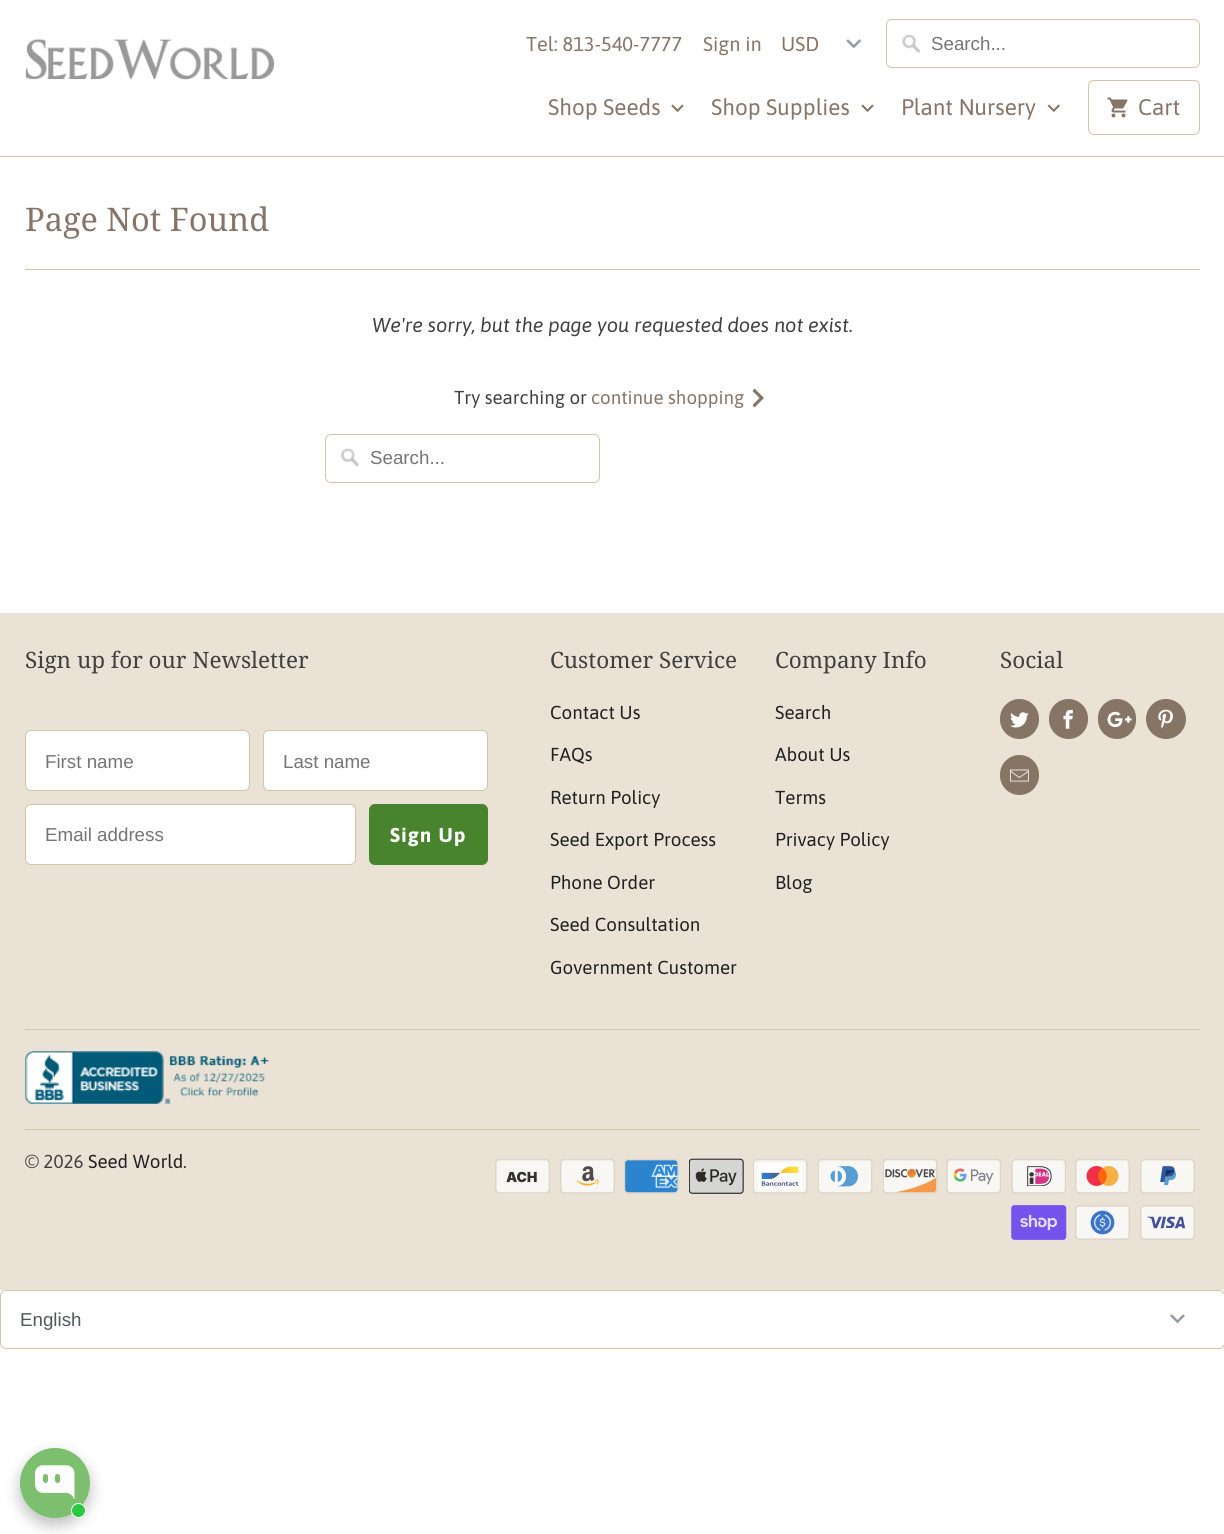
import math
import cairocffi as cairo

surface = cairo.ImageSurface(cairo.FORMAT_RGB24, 1224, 1534)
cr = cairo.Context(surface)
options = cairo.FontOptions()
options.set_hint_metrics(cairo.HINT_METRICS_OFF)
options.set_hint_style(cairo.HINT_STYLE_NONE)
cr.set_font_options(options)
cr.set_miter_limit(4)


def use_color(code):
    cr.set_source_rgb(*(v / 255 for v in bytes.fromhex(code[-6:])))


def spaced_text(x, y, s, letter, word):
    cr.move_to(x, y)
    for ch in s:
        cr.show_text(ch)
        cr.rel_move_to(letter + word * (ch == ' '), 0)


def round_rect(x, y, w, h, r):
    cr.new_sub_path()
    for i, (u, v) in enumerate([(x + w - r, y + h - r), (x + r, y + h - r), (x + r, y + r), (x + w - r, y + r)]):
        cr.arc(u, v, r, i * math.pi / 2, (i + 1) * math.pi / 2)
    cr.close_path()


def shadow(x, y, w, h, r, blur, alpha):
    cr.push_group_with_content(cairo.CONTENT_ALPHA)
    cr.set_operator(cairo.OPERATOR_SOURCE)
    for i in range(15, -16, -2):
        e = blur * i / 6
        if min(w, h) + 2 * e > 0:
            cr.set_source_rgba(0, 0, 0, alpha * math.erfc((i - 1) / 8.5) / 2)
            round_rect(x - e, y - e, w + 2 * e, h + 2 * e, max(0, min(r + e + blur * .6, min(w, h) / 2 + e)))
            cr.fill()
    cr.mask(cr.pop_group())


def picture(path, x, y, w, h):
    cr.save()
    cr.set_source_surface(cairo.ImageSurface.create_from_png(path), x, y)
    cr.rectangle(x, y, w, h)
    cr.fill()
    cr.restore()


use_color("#ffffff")
cr.paint()
use_color("#d5c3aa")
cr.rectangle(0, 156, 1224, 1)
cr.fill()
picture("img1.png", 25, 38, 250, 42)
cr.select_font_face("Asap")
cr.set_font_size(20)
use_color("#867566")
cr.move_to(526, 51)
cr.show_text("Tel: 813-540-7777")
cr.move_to(703, 51)
cr.show_text("Sign in")
picture("img2.png", 846, 39, 16, 10)
cr.move_to(781, 51)
cr.show_text("USD")
picture("img3.png", 902, 35, 18, 18)
round_rect(886.5, 19.5, 313, 48, 5.5)
use_color("#d5c3aa")
cr.set_line_width(1)
cr.stroke()
cr.select_font_face("Liberation Sans")
cr.set_font_size(18.75)
use_color("#757575")
cr.move_to(931, 50)
cr.show_text("Search...")
cr.select_font_face("Asap")
cr.set_font_size(22.5)
use_color("#867566")
cr.move_to(548, 115)
cr.show_text("Shop Seeds")
picture("img4.png", 671, 104, 13, 8)
cr.move_to(711, 115)
cr.show_text("Shop Supplies")
picture("img4.png", 861, 104, 13, 8)
cr.move_to(901, 115)
cr.show_text("Plant Nursery")
picture("img5.png", 1047, 104, 13, 8)
round_rect(1088.5, 80.5, 111, 54, 5.5)
use_color("#d5c3aa")
cr.stroke()
picture("img6.png", 1107, 97, 21, 21)
use_color("#867566")
cr.move_to(1138, 115)
cr.show_text("Cart")
use_color("#d5c3aa")
cr.rectangle(25, 269, 1175, 1)
cr.fill()
cr.select_font_face("Noto Serif")
cr.set_font_size(32.5)
use_color("#867566")
cr.move_to(25, 231)
cr.show_text("Page Not Found")
cr.select_font_face("Asap", cairo.FONT_SLANT_ITALIC)
cr.set_font_size(20)
use_color("#404040")
cr.move_to(372, 332)
cr.show_text("We're sorry, but the page you requested does not exist.")
cr.select_font_face("Asap")
cr.set_font_size(18.75)
cr.move_to(454, 404)
cr.show_text("Try searching or")
use_color("#867566")
cr.move_to(591, 404)
cr.show_text("continue shopping")
use_color("#867465")
cr.new_path()
cr.move_to(754.5, 388.5)
cr.line_to(752.5, 391)
cr.line_to(759.5, 398)
cr.line_to(752.5, 405)
cr.line_to(754.5, 407.5)
cr.line_to(764, 398)
cr.close_path()
cr.fill()
picture("img7.png", 341, 448, 18, 19)
round_rect(325.5, 434.5, 274, 48, 5.5)
use_color("#d5c3aa")
cr.stroke()
cr.select_font_face("Liberation Sans")
use_color("#757575")
cr.move_to(370, 464)
cr.show_text("Search...")
use_color("#e9e2d5")
cr.rectangle(0, 613, 1224, 677)
cr.fill()
cr.select_font_face("Noto Serif")
cr.set_font_size(22.5)
use_color("#404040")
cr.move_to(25, 668)
cr.show_text("Sign up for our Newsletter")
use_color("#ffffff")
round_rect(25.5, 730.5, 224, 60, 5.5)
cr.fill_preserve()
use_color("#d5c3aa")
cr.stroke()
cr.select_font_face("Liberation Sans")
cr.set_font_size(18.75)
use_color("#757575")
cr.move_to(45, 768)
cr.show_text("First name")
use_color("#ffffff")
round_rect(263.5, 730.5, 224, 60, 5.5)
cr.fill_preserve()
use_color("#d5c3aa")
cr.stroke()
use_color("#757575")
cr.move_to(283, 768)
cr.show_text("Last name")
use_color("#ffffff")
round_rect(25.5, 804.5, 330, 60, 5.5)
cr.fill_preserve()
use_color("#d5c3aa")
cr.stroke()
use_color("#757575")
cr.move_to(45, 841)
cr.show_text("Email address")
use_color("#48842d")
round_rect(369, 804, 119, 61, 6)
cr.fill()
cr.select_font_face("Asap", cairo.FONT_SLANT_NORMAL, cairo.FONT_WEIGHT_BOLD)
cr.set_font_size(20)
use_color("#ffffff")
spaced_text(390, 842, "Sign Up", 1.25, 0)
cr.select_font_face("Noto Serif")
cr.set_font_size(22.5)
use_color("#404040")
cr.move_to(550, 668)
cr.show_text("Customer Service")
cr.select_font_face("Asap")
cr.set_font_size(18.75)
use_color("#1f2021")
cr.move_to(550, 719)
cr.show_text("Contact Us")
cr.move_to(550, 761)
cr.show_text("FAQs")
cr.move_to(550, 804)
cr.show_text("Return Policy")
cr.move_to(550, 846)
cr.show_text("Seed Export Process")
cr.move_to(550, 889)
cr.show_text("Phone Order")
cr.move_to(550, 931)
cr.show_text("Seed Consultation")
cr.move_to(550, 974)
cr.show_text("Government Customer")
cr.select_font_face("Noto Serif")
cr.set_font_size(22.5)
use_color("#404040")
cr.move_to(775, 668)
cr.show_text("Company Info")
cr.select_font_face("Asap")
cr.set_font_size(18.75)
use_color("#1f2021")
cr.move_to(775, 719)
cr.show_text("Search")
cr.move_to(775, 761)
cr.show_text("About Us")
cr.move_to(775, 804)
cr.show_text("Terms")
cr.move_to(775, 846)
cr.show_text("Privacy Policy")
cr.move_to(775, 889)
cr.show_text("Blog")
cr.select_font_face("Noto Serif")
cr.set_font_size(22.5)
use_color("#404040")
cr.move_to(1000, 668)
cr.show_text("Social")
use_color("#867465")
round_rect(1000, 699, 39, 40, 19.5)
cr.fill()
picture("img8.png", 1010, 712, 19, 16)
round_rect(1049, 699, 39, 40, 19.5)
cr.fill()
picture("img9.png", 1063, 709, 10, 20)
round_rect(1098, 699, 38, 40, 19)
cr.fill()
picture("img10.png", 1107, 711, 25, 17)
cr.arc(1166, 719, 20, 0, 2 * math.pi)
cr.fill()
picture("img11.png", 1158, 709, 15, 20)
round_rect(1000, 755, 39, 40, 19.5)
cr.fill()
picture("img12.png", 1010, 769, 19, 13)
use_color("#d5c3aa")
cr.rectangle(25, 1029, 1175, 1)
cr.fill()
picture("img13.png", 25, 1051, 244, 53)
cr.rectangle(25, 1129, 1175, 1)
cr.fill()
cr.select_font_face("Asap")
cr.set_font_size(18.75)
use_color("#404040")
cr.move_to(25, 1168)
cr.show_text("© 2026")
use_color("#1f2021")
cr.move_to(88, 1168)
cr.show_text("Seed World")
use_color("#404040")
cr.move_to(183, 1168)
cr.show_text(".")
picture("img14.png", 495, 1159, 55, 34)
picture("img15.png", 560, 1159, 55, 35)
picture("img16.png", 624, 1159, 55, 35)
picture("img17.png", 689, 1158, 55, 36)
picture("img18.png", 753, 1159, 55, 35)
picture("img19.png", 818, 1159, 55, 35)
picture("img20.png", 883, 1159, 55, 35)
picture("img21.png", 946, 1159, 55, 35)
picture("img22.png", 1011, 1159, 55, 35)
picture("img23.png", 1075, 1159, 55, 35)
picture("img24.png", 1140, 1159, 55, 35)
picture("img25.png", 1011, 1205, 56, 35)
picture("img26.png", 1075, 1205, 55, 35)
picture("img27.png", 1140, 1205, 55, 35)
picture("img28.png", 1170, 1314, 15, 10)
round_rect(0.5, 1290.5, 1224, 58, 5.5)
use_color("#d5c3aa")
cr.stroke()
cr.select_font_face("Liberation Sans")
use_color("#51595d")
cr.move_to(20, 1326)
cr.show_text("English")
use_color("#000000")
shadow(20, 1455, 70, 70, 35, 7.5, 0.25)
use_color("#7bbf6f")
cr.arc(55, 1483, 35, 0, 2 * math.pi)
cr.fill()
picture("img29.png", 35, 1465, 40, 35)
use_color("#27ca40")
cr.arc(78.5, 1510.5, 7, 0, 2 * math.pi)
cr.fill_preserve()
use_color("#ffffff")
cr.stroke()
use_color("#f5f5f5")
cr.rectangle(1223, 1533, 1, 1)
cr.fill()
surface.write_to_png("result.png")
